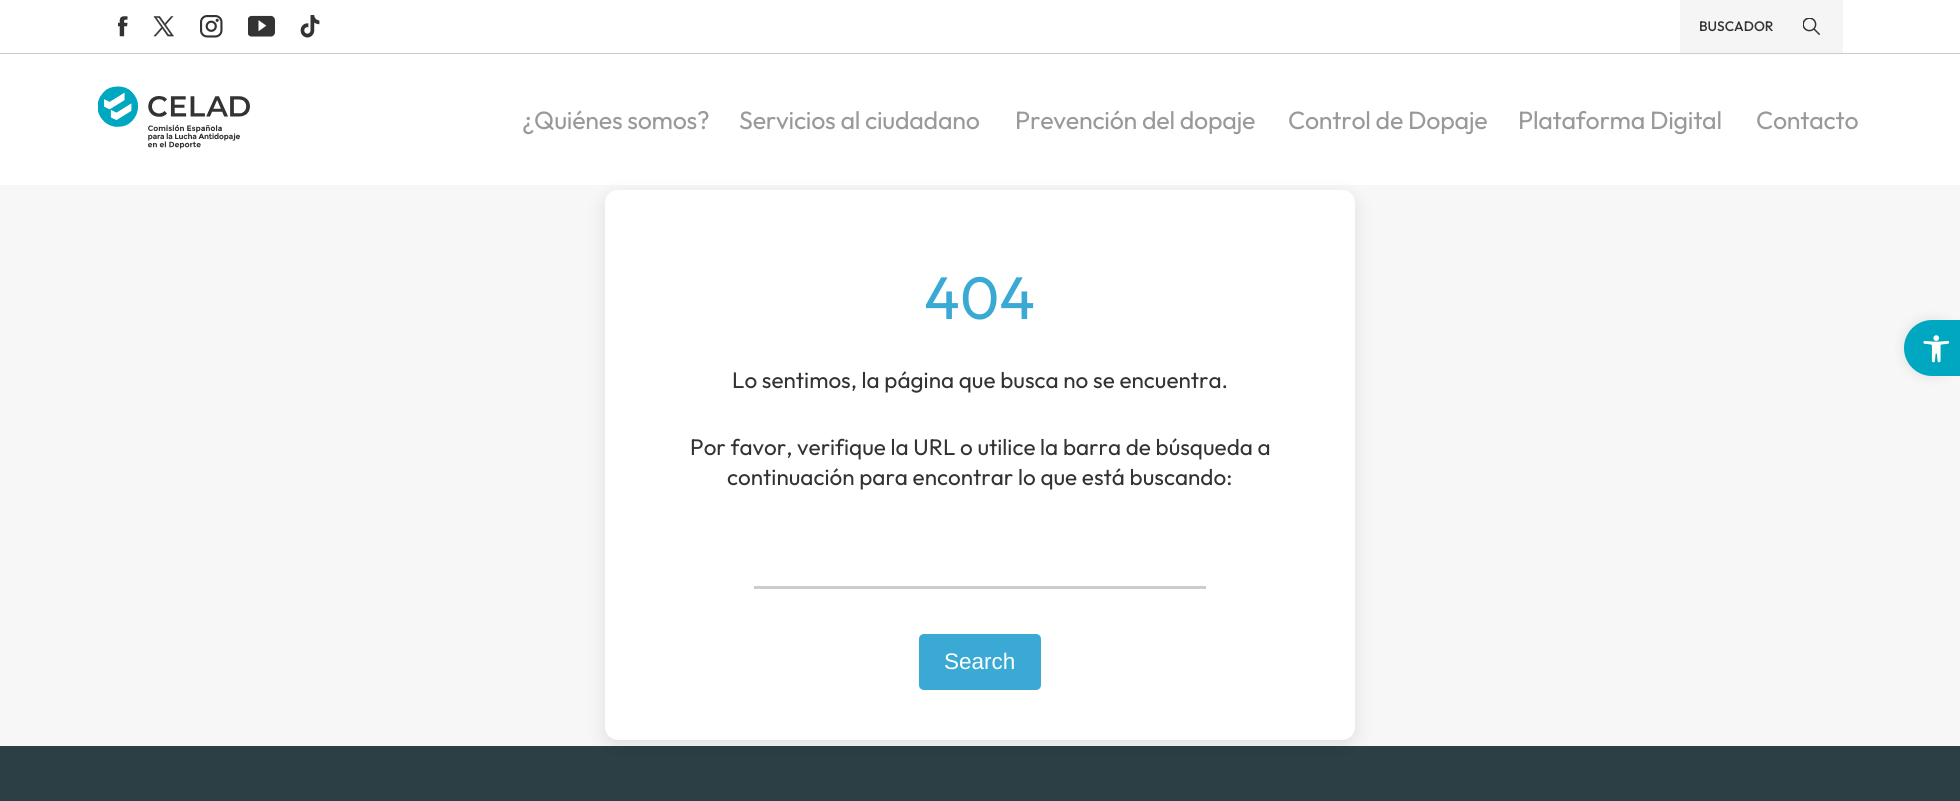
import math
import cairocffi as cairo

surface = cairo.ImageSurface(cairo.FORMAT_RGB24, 1960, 801)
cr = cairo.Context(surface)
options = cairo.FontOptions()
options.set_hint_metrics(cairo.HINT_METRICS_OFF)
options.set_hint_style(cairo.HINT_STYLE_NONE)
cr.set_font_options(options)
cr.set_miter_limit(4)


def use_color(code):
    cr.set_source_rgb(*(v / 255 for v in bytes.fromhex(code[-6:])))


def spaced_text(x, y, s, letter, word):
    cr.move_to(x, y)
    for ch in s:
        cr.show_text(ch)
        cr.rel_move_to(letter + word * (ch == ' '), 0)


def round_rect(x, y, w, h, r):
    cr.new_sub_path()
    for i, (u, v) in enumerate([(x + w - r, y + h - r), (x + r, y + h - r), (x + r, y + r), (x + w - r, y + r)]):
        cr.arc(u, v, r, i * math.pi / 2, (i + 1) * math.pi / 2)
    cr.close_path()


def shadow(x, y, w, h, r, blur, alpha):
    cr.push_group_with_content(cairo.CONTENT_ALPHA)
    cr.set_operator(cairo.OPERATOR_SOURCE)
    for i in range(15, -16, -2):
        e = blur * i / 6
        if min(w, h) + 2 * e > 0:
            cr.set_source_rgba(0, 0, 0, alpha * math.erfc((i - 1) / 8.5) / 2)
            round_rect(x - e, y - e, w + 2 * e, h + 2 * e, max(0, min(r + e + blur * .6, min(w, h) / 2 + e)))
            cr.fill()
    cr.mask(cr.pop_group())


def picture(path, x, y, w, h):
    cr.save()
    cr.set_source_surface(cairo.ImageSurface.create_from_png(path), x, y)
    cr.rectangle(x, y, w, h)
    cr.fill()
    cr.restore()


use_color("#ffffff")
cr.paint()
use_color("#cccccc")
cr.rectangle(0, 53, 1960, 1)
cr.fill()
picture("img1.png", 118, 16, 10, 21)
picture("img2.png", 153, 16, 21, 21)
picture("img3.png", 200, 15, 23, 23)
picture("img4.png", 248, 15, 27, 22)
picture("img5.png", 300, 15, 20, 23)
use_color("#f5f5f5")
cr.rectangle(1680, 0, 163, 53)
cr.fill()
cr.select_font_face("Outfit Medium")
cr.set_font_size(13.75)
use_color("#333333")
cr.move_to(1699, 31)
cr.show_text("BUSCADOR")
picture("img6.png", 1803, 18, 17, 17)
picture("img7.png", 98, 86, 152, 63)
cr.select_font_face("Outfit")
cr.set_font_size(25)
use_color("#999999")
spaced_text(522, 129, "¿Quiénes somos?", -0.25, 0)
spaced_text(739, 129, "Servicios al ciudadano", -0.25, 0)
spaced_text(1015, 129, "Prevención del dopaje", -0.25, 0)
spaced_text(1288, 129, "Control de Dopaje", -0.25, 0)
spaced_text(1518, 129, "Plataforma Digital", -0.25, 0)
spaced_text(1756, 129, "Contacto", -0.25, 0)
use_color("#f7f7f7")
cr.rectangle(0, 185, 1960, 561)
cr.fill()
use_color("#2b3f45")
cr.rectangle(0, 746, 1960, 55)
cr.fill()
use_color("#000000")
shadow(605, 196, 750, 550, 13, 9.5, 0.1)
use_color("#ffffff")
round_rect(605, 190, 750, 550, 13)
cr.fill()
cr.set_font_size(60)
use_color("#3aa9d4")
cr.move_to(924, 319)
cr.show_text("404")
cr.set_font_size(22.5)
use_color("#333333")
cr.move_to(732, 388)
cr.show_text("Lo sentimos, la página que busca no se encuentra.")
cr.move_to(690, 455)
cr.show_text("Por favor, verifique la URL o utilice la barra de búsqueda a")
cr.move_to(727, 485)
cr.show_text("continuación para encontrar lo que está buscando:")
use_color("#cccccc")
cr.rectangle(754, 586, 452, 3)
cr.fill()
use_color("#3aa9d4")
round_rect(919, 634, 122, 56, 5)
cr.fill()
cr.select_font_face("Liberation Sans")
use_color("#ffffff")
cr.move_to(944, 669)
cr.show_text("Search")
use_color("#000000")
shadow(1904, 320, 56, 56, 28, 6, 0.1)
use_color("#00a7c1")
cr.new_path()
cr.move_to(1932, 320)
cr.line_to(1960, 320)
cr.line_to(1960, 376)
cr.line_to(1932, 376)
cr.curve_to(1916.5, 376, 1904, 363.5, 1904, 348)
cr.curve_to(1904, 332.5, 1916.5, 320, 1932, 320)
cr.close_path()
cr.fill()
picture("img8.png", 1923, 335, 27, 28)
surface.write_to_png("result.png")
